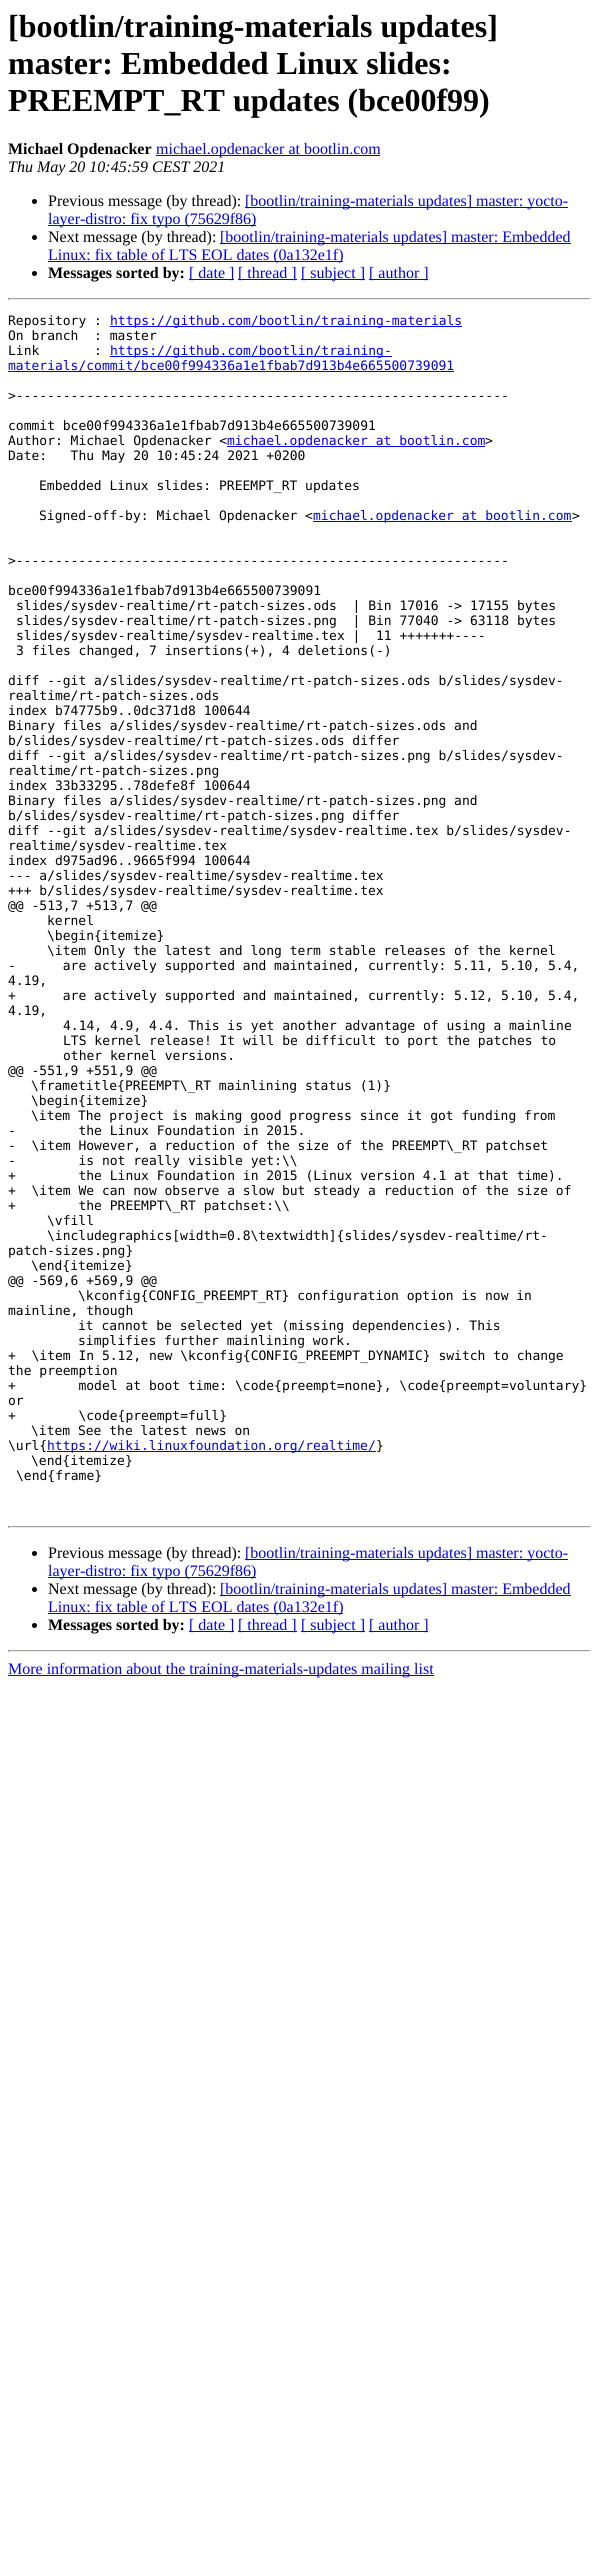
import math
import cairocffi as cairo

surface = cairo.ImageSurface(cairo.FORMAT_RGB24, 599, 2549)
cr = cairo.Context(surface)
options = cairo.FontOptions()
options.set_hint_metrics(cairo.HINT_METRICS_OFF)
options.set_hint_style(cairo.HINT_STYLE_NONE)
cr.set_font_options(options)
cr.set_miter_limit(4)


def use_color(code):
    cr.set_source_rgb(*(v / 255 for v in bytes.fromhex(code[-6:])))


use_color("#ffffff")
cr.paint()
cr.select_font_face("Liberation Serif", cairo.FONT_SLANT_NORMAL, cairo.FONT_WEIGHT_BOLD)
cr.set_font_size(32)
use_color("#000000")
cr.move_to(8, 37)
cr.show_text("[bootlin/training-materials updates]")
cr.move_to(8, 74)
cr.show_text("master: Embedded Linux slides:")
cr.move_to(8, 111)
cr.show_text("PREEMPT_RT updates (bce00f99)")
cr.set_font_size(16)
cr.move_to(8, 154)
cr.show_text("Michael Opdenacker")
use_color("#0000ee")
cr.rectangle(156, 155, 224, 1)
cr.fill()
cr.select_font_face("Liberation Serif")
cr.move_to(156, 154)
cr.show_text("michael.opdenacker at bootlin.com")
cr.select_font_face("Liberation Serif", cairo.FONT_SLANT_ITALIC)
use_color("#000000")
cr.move_to(8, 172)
cr.show_text("Thu May 20 10:45:59 CEST 2021")
cr.new_path()
cr.arc(34.5, 201.5, 2.5, 0, 2 * math.pi)
cr.fill()
cr.select_font_face("Liberation Serif")
cr.move_to(48, 206)
cr.show_text("Previous message (by thread):")
use_color("#0000ee")
cr.rectangle(245, 207, 323, 1)
cr.fill()
cr.move_to(245, 206)
cr.show_text("[bootlin/training-materials updates] master: yocto-")
cr.rectangle(48, 225, 208, 1)
cr.fill()
cr.move_to(48, 224)
cr.show_text("layer-distro: fix typo (75629f86)")
use_color("#000000")
cr.new_path()
cr.arc(34.5, 237.5, 2.5, 0, 2 * math.pi)
cr.fill()
cr.move_to(48, 242)
cr.show_text("Next message (by thread):")
use_color("#0000ee")
cr.rectangle(220, 243, 351, 1)
cr.fill()
cr.move_to(220, 242)
cr.show_text("[bootlin/training-materials updates] master: Embedded")
cr.rectangle(48, 261, 295, 1)
cr.fill()
cr.move_to(48, 260)
cr.show_text("Linux: fix table of LTS EOL dates (0a132e1f)")
use_color("#000000")
cr.new_path()
cr.arc(34.5, 273.5, 2.5, 0, 2 * math.pi)
cr.fill()
cr.select_font_face("Liberation Serif", cairo.FONT_SLANT_NORMAL, cairo.FONT_WEIGHT_BOLD)
cr.move_to(48, 278)
cr.show_text("Messages sorted by:")
use_color("#0000ee")
cr.rectangle(189, 279, 45, 1)
cr.fill()
cr.select_font_face("Liberation Serif")
cr.move_to(189, 278)
cr.show_text("[ date ]")
cr.rectangle(238, 279, 59, 1)
cr.fill()
cr.move_to(238, 278)
cr.show_text("[ thread ]")
cr.rectangle(301, 279, 64, 1)
cr.fill()
cr.move_to(301, 278)
cr.show_text("[ subject ]")
cr.rectangle(369, 279, 59, 1)
cr.fill()
cr.move_to(369, 278)
cr.show_text("[ author ]")
use_color("#9f9f9f")
cr.rectangle(8, 298, 583, 1)
cr.fill()
use_color("#eeeeee")
cr.rectangle(590, 298, 1, 2)
cr.fill()
cr.rectangle(8, 299, 583, 1)
cr.fill()
use_color("#9f9f9f")
cr.rectangle(8, 298, 1, 2)
cr.fill()
cr.select_font_face("DejaVu Sans Mono")
cr.set_font_size(13)
use_color("#000000")
cr.move_to(8, 325)
cr.show_text("Repository :")
use_color("#0000ee")
cr.rectangle(110, 326, 352, 1)
cr.fill()
cr.move_to(110, 325)
cr.show_text("https://github.com/bootlin/training-materials")
use_color("#000000")
cr.move_to(8, 340)
cr.show_text("On branch  : master")
cr.move_to(8, 355)
cr.show_text("Link       :")
use_color("#0000ee")
cr.rectangle(110, 356, 282, 1)
cr.fill()
cr.move_to(110, 355)
cr.show_text("https://github.com/bootlin/training-")
cr.rectangle(8, 371, 446, 1)
cr.fill()
cr.move_to(8, 370)
cr.show_text("materials/commit/bce00f994336a1e1fbab7d913b4e665500739091")
use_color("#000000")
cr.move_to(8, 400)
cr.show_text(">")
cr.select_font_face("DejaVu Sans Mono", cairo.FONT_SLANT_ITALIC)
cr.move_to(16, 400)
cr.show_text("---------------------------------------------------------------")
cr.select_font_face("DejaVu Sans Mono")
cr.move_to(8, 430)
cr.show_text("commit bce00f994336a1e1fbab7d913b4e665500739091")
cr.move_to(8, 445)
cr.show_text("Author: Michael Opdenacker <")
use_color("#0000ee")
cr.rectangle(227, 446, 258, 1)
cr.fill()
cr.move_to(227, 445)
cr.show_text("michael.opdenacker at bootlin.com")
use_color("#000000")
cr.move_to(485, 445)
cr.show_text(">")
cr.move_to(8, 460)
cr.show_text("Date:   Thu May 20 10:45:24 2021 +0200")
cr.move_to(39, 490)
cr.show_text("Embedded Linux slides: PREEMPT_RT updates")
cr.move_to(39, 520)
cr.show_text("Signed-off-by: Michael Opdenacker <")
use_color("#0000ee")
cr.rectangle(313, 521, 259, 1)
cr.fill()
cr.move_to(313, 520)
cr.show_text("michael.opdenacker at bootlin.com")
use_color("#000000")
cr.move_to(572, 520)
cr.show_text(">")
cr.move_to(8, 565)
cr.show_text(">")
cr.select_font_face("DejaVu Sans Mono", cairo.FONT_SLANT_ITALIC)
cr.move_to(16, 565)
cr.show_text("---------------------------------------------------------------")
cr.select_font_face("DejaVu Sans Mono")
cr.move_to(8, 595)
cr.show_text("bce00f994336a1e1fbab7d913b4e665500739091")
cr.move_to(16, 610)
cr.show_text("slides/sysdev-realtime/rt-patch-sizes.ods  | Bin 17016 -> 17155 bytes")
cr.move_to(16, 625)
cr.show_text("slides/sysdev-realtime/rt-patch-sizes.png  | Bin 77040 -> 63118 bytes")
cr.move_to(16, 640)
cr.show_text("slides/sysdev-realtime/sysdev-realtime.tex |  11 +++++++----")
cr.move_to(16, 655)
cr.show_text("3 files changed, 7 insertions(+), 4 deletions(-)")
cr.move_to(8, 685)
cr.show_text("diff --git a/slides/sysdev-realtime/rt-patch-sizes.ods b/slides/sysdev-")
cr.move_to(8, 700)
cr.show_text("realtime/rt-patch-sizes.ods")
cr.move_to(8, 715)
cr.show_text("index b74775b9..0dc371d8 100644")
cr.move_to(8, 730)
cr.show_text("Binary files a/slides/sysdev-realtime/rt-patch-sizes.ods and")
cr.move_to(8, 745)
cr.show_text("b/slides/sysdev-realtime/rt-patch-sizes.ods differ")
cr.move_to(8, 760)
cr.show_text("diff --git a/slides/sysdev-realtime/rt-patch-sizes.png b/slides/sysdev-")
cr.move_to(8, 775)
cr.show_text("realtime/rt-patch-sizes.png")
cr.move_to(8, 790)
cr.show_text("index 33b33295..78defe8f 100644")
cr.move_to(8, 805)
cr.show_text("Binary files a/slides/sysdev-realtime/rt-patch-sizes.png and")
cr.move_to(8, 820)
cr.show_text("b/slides/sysdev-realtime/rt-patch-sizes.png differ")
cr.move_to(8, 835)
cr.show_text("diff --git a/slides/sysdev-realtime/sysdev-realtime.tex b/slides/sysdev-")
cr.move_to(8, 850)
cr.show_text("realtime/sysdev-realtime.tex")
cr.move_to(8, 865)
cr.show_text("index d975ad96..9665f994 100644")
cr.move_to(8, 880)
cr.show_text("--- a/slides/sysdev-realtime/sysdev-realtime.tex")
cr.move_to(8, 895)
cr.show_text("+++ b/slides/sysdev-realtime/sysdev-realtime.tex")
cr.move_to(8, 910)
cr.show_text("@@ -513,7 +513,7 @@")
cr.move_to(47, 925)
cr.show_text("kernel")
cr.move_to(47, 940)
cr.show_text("\\begin{itemize}")
cr.move_to(47, 955)
cr.show_text("\\item Only the latest and long term stable releases of the kernel")
cr.move_to(8, 970)
cr.show_text("-      are actively supported and maintained, currently: 5.11, 5.10, 5.4,")
cr.move_to(8, 985)
cr.show_text("4.19,")
cr.move_to(8, 1000)
cr.show_text("+      are actively supported and maintained, currently: 5.12, 5.10, 5.4,")
cr.move_to(8, 1015)
cr.show_text("4.19,")
cr.move_to(63, 1030)
cr.show_text("4.14, 4.9, 4.4. This is yet another advantage of using a mainline")
cr.move_to(63, 1045)
cr.show_text("LTS kernel release! It will be difficult to port the patches to")
cr.move_to(63, 1060)
cr.show_text("other kernel versions.")
cr.move_to(8, 1075)
cr.show_text("@@ -551,9 +551,9 @@")
cr.move_to(31, 1090)
cr.show_text("\\frametitle{PREEMPT\\_RT mainlining status (1)}")
cr.move_to(31, 1105)
cr.show_text("\\begin{itemize}")
cr.move_to(31, 1120)
cr.show_text("\\item The project is making good progress since it got funding from")
cr.move_to(8, 1135)
cr.show_text("-        the Linux Foundation in 2015.")
cr.move_to(8, 1150)
cr.show_text("-  \\item However, a reduction of the size of the PREEMPT\\_RT patchset")
cr.move_to(8, 1165)
cr.show_text("-        is not really visible yet:\\\\")
cr.move_to(8, 1180)
cr.show_text("+        the Linux Foundation in 2015 (Linux version 4.1 at that time).")
cr.move_to(8, 1195)
cr.show_text("+  \\item We can now observe a slow but steady a reduction of the size of")
cr.move_to(8, 1210)
cr.show_text("+        the PREEMPT\\_RT patchset:\\\\")
cr.move_to(47, 1225)
cr.show_text("\\vfill")
cr.move_to(47, 1240)
cr.show_text("\\includegraphics[width=0.8\\textwidth]{slides/sysdev-realtime/rt-")
cr.move_to(8, 1255)
cr.show_text("patch-sizes.png}")
cr.move_to(31, 1270)
cr.show_text("\\end{itemize}")
cr.move_to(8, 1285)
cr.show_text("@@ -569,6 +569,9 @@")
cr.move_to(78, 1300)
cr.show_text("\\kconfig{CONFIG_PREEMPT_RT} configuration option is now in")
cr.move_to(8, 1315)
cr.show_text("mainline, though")
cr.move_to(78, 1330)
cr.show_text("it cannot be selected yet (missing dependencies). This")
cr.move_to(78, 1345)
cr.show_text("simplifies further mainlining work.")
cr.move_to(8, 1360)
cr.show_text("+  \\item In 5.12, new \\kconfig{CONFIG_PREEMPT_DYNAMIC} switch to change")
cr.move_to(8, 1375)
cr.show_text("the preemption")
cr.move_to(8, 1390)
cr.show_text("+        model at boot time: \\code{preempt=none}, \\code{preempt=voluntary}")
cr.move_to(8, 1405)
cr.show_text("or")
cr.move_to(8, 1420)
cr.show_text("+        \\code{preempt=full}")
cr.move_to(31, 1435)
cr.show_text("\\item See the latest news on")
cr.move_to(8, 1450)
cr.show_text("\\url{")
use_color("#0000ee")
cr.rectangle(47, 1451, 329, 1)
cr.fill()
cr.move_to(47, 1450)
cr.show_text("https://wiki.linuxfoundation.org/realtime/")
use_color("#000000")
cr.move_to(376, 1450)
cr.show_text("}")
cr.move_to(31, 1465)
cr.show_text("\\end{itemize}")
cr.move_to(16, 1480)
cr.show_text("\\end{frame}")
use_color("#9f9f9f")
cr.rectangle(8, 1526, 583, 1)
cr.fill()
use_color("#eeeeee")
cr.rectangle(590, 1526, 1, 2)
cr.fill()
cr.rectangle(8, 1527, 583, 1)
cr.fill()
use_color("#9f9f9f")
cr.rectangle(8, 1526, 1, 2)
cr.fill()
use_color("#000000")
cr.arc(34.5, 1553.5, 2.5, 0, 2 * math.pi)
cr.fill()
cr.select_font_face("Liberation Serif")
cr.set_font_size(16)
cr.move_to(48, 1558)
cr.show_text("Previous message (by thread):")
use_color("#0000ee")
cr.rectangle(245, 1559, 323, 1)
cr.fill()
cr.move_to(245, 1558)
cr.show_text("[bootlin/training-materials updates] master: yocto-")
cr.rectangle(48, 1577, 208, 1)
cr.fill()
cr.move_to(48, 1576)
cr.show_text("layer-distro: fix typo (75629f86)")
use_color("#000000")
cr.new_path()
cr.arc(34.5, 1589.5, 2.5, 0, 2 * math.pi)
cr.fill()
cr.move_to(48, 1594)
cr.show_text("Next message (by thread):")
use_color("#0000ee")
cr.rectangle(220, 1595, 351, 1)
cr.fill()
cr.move_to(220, 1594)
cr.show_text("[bootlin/training-materials updates] master: Embedded")
cr.rectangle(48, 1613, 295, 1)
cr.fill()
cr.move_to(48, 1612)
cr.show_text("Linux: fix table of LTS EOL dates (0a132e1f)")
use_color("#000000")
cr.new_path()
cr.arc(34.5, 1625.5, 2.5, 0, 2 * math.pi)
cr.fill()
cr.select_font_face("Liberation Serif", cairo.FONT_SLANT_NORMAL, cairo.FONT_WEIGHT_BOLD)
cr.move_to(48, 1630)
cr.show_text("Messages sorted by:")
use_color("#0000ee")
cr.rectangle(189, 1631, 45, 1)
cr.fill()
cr.select_font_face("Liberation Serif")
cr.move_to(189, 1630)
cr.show_text("[ date ]")
cr.rectangle(238, 1631, 59, 1)
cr.fill()
cr.move_to(238, 1630)
cr.show_text("[ thread ]")
cr.rectangle(301, 1631, 64, 1)
cr.fill()
cr.move_to(301, 1630)
cr.show_text("[ subject ]")
cr.rectangle(369, 1631, 59, 1)
cr.fill()
cr.move_to(369, 1630)
cr.show_text("[ author ]")
use_color("#9f9f9f")
cr.rectangle(8, 1650, 583, 1)
cr.fill()
use_color("#eeeeee")
cr.rectangle(590, 1650, 1, 2)
cr.fill()
cr.rectangle(8, 1651, 583, 1)
cr.fill()
use_color("#9f9f9f")
cr.rectangle(8, 1650, 1, 2)
cr.fill()
use_color("#0000ee")
cr.rectangle(8, 1675, 426, 1)
cr.fill()
cr.move_to(8, 1674)
cr.show_text("More information about the training-materials-updates mailing list")
surface.write_to_png("result.png")
